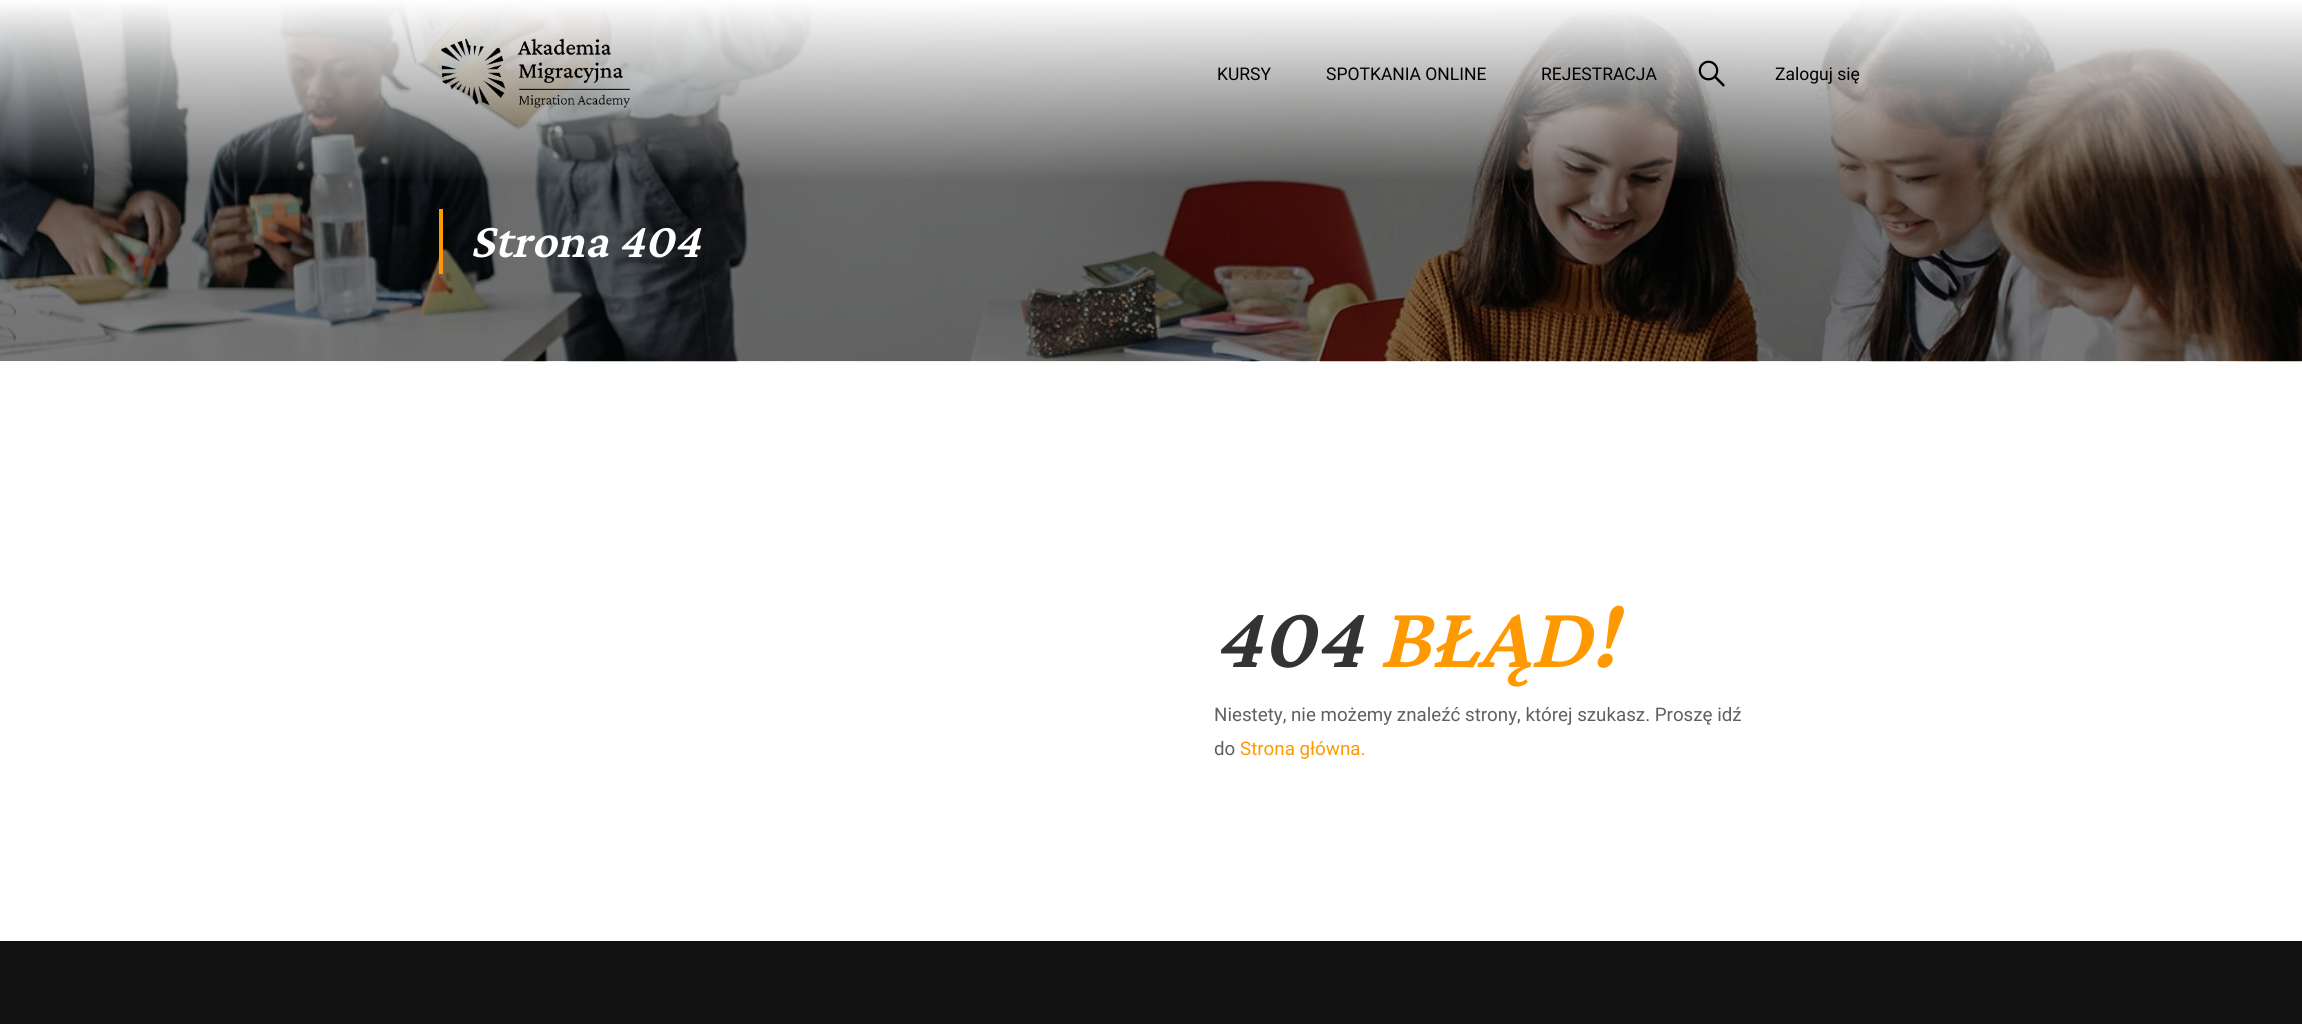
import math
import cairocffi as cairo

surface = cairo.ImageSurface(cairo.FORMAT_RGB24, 2302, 1024)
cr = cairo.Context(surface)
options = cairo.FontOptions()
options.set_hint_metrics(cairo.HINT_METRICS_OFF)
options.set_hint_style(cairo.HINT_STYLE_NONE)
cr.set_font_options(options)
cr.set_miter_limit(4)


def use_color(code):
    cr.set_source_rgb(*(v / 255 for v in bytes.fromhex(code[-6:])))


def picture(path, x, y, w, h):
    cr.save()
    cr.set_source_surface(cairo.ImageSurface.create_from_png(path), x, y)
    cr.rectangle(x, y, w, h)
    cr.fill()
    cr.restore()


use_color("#ffffff")
cr.paint()
picture("img3.png", 0, 0, 2302, 362)
picture("img1.png", 441, 38, 189, 70)
cr.select_font_face("Roboto")
cr.set_font_size(17.5)
use_color("#000000")
cr.move_to(1217, 80)
cr.show_text("KURSY")
cr.move_to(1326, 80)
cr.show_text("SPOTKANIA ONLINE")
cr.move_to(1541, 80)
cr.show_text("REJESTRACJA")
picture("img2.png", 1698, 60, 27, 27)
cr.move_to(1775, 80)
cr.show_text("Zaloguj się")
use_color("#fe9901")
cr.rectangle(439, 209, 4, 65)
cr.fill()
cr.select_font_face("Crimson Pro SemiBold", cairo.FONT_SLANT_ITALIC)
cr.set_font_size(50)
use_color("#ffffff")
cr.move_to(470, 257)
cr.show_text("Strona 404")
cr.set_font_size(90)
use_color("#333333")
cr.move_to(1214, 667)
cr.show_text("404")
use_color("#fe9901")
cr.move_to(1379, 667)
cr.show_text("BŁĄD!")
cr.select_font_face("Roboto")
cr.set_font_size(18.75)
use_color("#606060")
cr.move_to(1214, 721)
cr.show_text("Niestety, nie możemy znaleźć strony, której szukasz. Proszę idź")
cr.move_to(1214, 755)
cr.show_text("do")
use_color("#fe9901")
cr.move_to(1240, 755)
cr.show_text("Strona główna.")
use_color("#111111")
cr.rectangle(0, 941, 2302, 83)
cr.fill()
surface.write_to_png("result.png")
